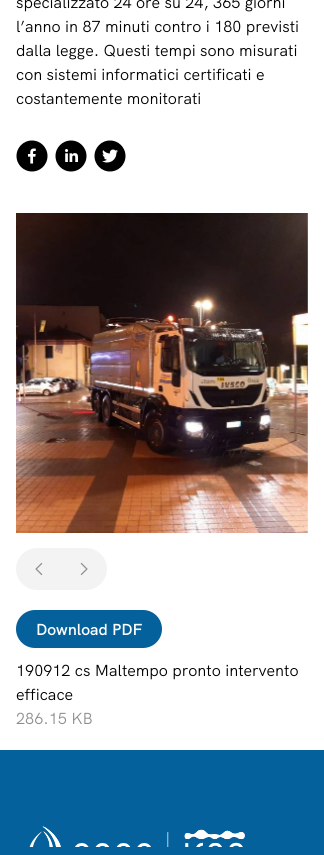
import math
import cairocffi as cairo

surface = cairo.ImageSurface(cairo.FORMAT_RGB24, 324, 855)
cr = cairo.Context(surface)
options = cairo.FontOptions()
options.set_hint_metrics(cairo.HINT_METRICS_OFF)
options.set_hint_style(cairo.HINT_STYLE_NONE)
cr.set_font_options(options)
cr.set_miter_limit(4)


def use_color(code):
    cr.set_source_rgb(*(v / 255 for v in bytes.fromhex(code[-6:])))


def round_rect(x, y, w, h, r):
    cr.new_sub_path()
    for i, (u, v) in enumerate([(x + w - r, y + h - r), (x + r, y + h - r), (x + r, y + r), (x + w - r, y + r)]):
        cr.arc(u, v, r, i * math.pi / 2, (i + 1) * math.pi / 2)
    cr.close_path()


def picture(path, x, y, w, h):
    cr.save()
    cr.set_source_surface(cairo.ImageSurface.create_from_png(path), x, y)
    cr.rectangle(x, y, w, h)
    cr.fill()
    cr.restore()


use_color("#ffffff")
cr.paint()
cr.select_font_face("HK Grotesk")
cr.set_font_size(16)
use_color("#000000")
cr.move_to(16, 8)
cr.show_text("specializzato 24 ore su 24, 365 giorni")
cr.move_to(16, 32)
cr.show_text("l’anno in 87 minuti contro i 180 previsti")
cr.move_to(16, 56)
cr.show_text("dalla legge. Questi tempi sono misurati")
cr.move_to(16, 80)
cr.show_text("con sistemi informatici certificati e")
cr.move_to(16, 104)
cr.show_text("costantemente monitorati")
picture("img1.png", 16, 140, 32, 32)
picture("img2.png", 55, 140, 32, 32)
picture("img3.png", 94, 140, 32, 32)
picture("img4.png", 16, 213, 292, 320)
use_color("#f3f3f3")
cr.new_path()
cr.move_to(37, 548)
cr.line_to(62, 548)
cr.line_to(62, 590)
cr.line_to(37, 590)
cr.curve_to(25.5, 590, 16, 580.5, 16, 569)
cr.curve_to(16, 557.5, 25.5, 548, 37, 548)
cr.close_path()
cr.fill()
picture("img5.png", 35, 562, 8, 14)
cr.new_path()
cr.move_to(62, 548)
cr.line_to(86, 548)
cr.curve_to(97.5, 548, 107, 557.5, 107, 569)
cr.curve_to(107, 580.5, 97.5, 590, 86, 590)
cr.line_to(62, 590)
cr.close_path()
cr.fill()
picture("img6.png", 80, 562, 8, 14)
use_color("#05619b")
round_rect(16, 610, 146, 38, 19)
cr.fill()
cr.select_font_face("HK Grotesk SemiBold")
use_color("#ffffff")
cr.move_to(36, 635)
cr.show_text("Download PDF")
cr.select_font_face("HK Grotesk")
use_color("#000000")
cr.move_to(16, 676)
cr.show_text("190912 cs Maltempo pronto intervento")
cr.move_to(16, 700)
cr.show_text("efficace")
use_color("#8d8d8f")
cr.move_to(16, 724)
cr.show_text("286.15 KB")
use_color("#05619b")
cr.rectangle(0, 750, 324, 105)
cr.fill()
picture("img7.png", 29, 826, 216, 21)
surface.write_to_png("result.png")
